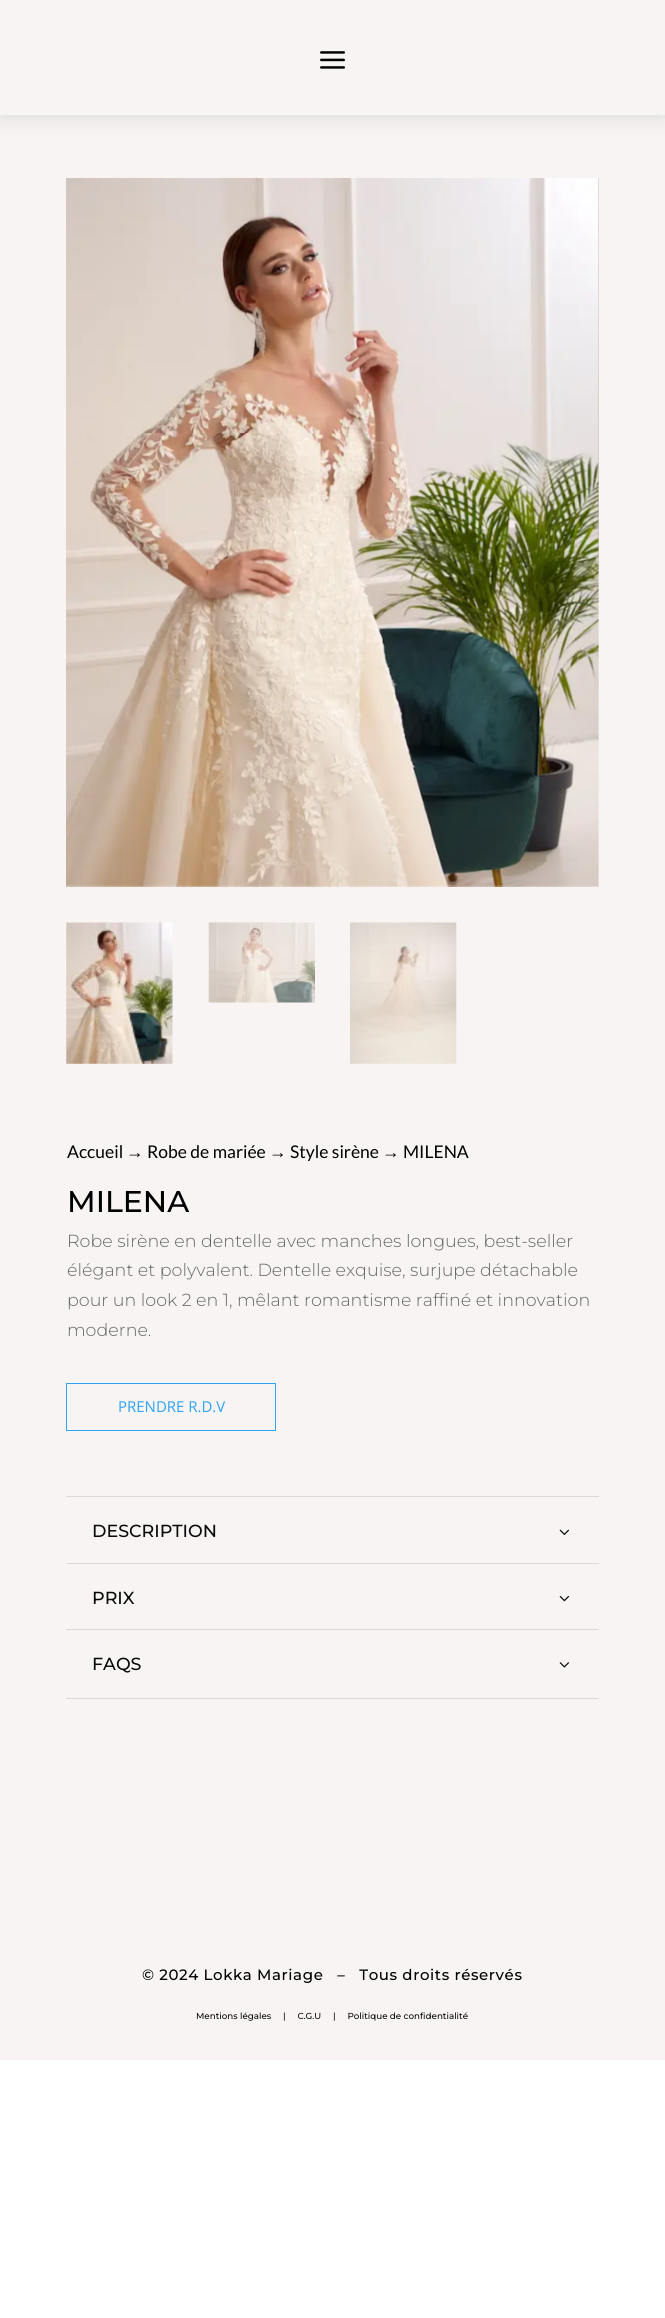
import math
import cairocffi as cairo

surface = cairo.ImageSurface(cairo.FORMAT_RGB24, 665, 2318)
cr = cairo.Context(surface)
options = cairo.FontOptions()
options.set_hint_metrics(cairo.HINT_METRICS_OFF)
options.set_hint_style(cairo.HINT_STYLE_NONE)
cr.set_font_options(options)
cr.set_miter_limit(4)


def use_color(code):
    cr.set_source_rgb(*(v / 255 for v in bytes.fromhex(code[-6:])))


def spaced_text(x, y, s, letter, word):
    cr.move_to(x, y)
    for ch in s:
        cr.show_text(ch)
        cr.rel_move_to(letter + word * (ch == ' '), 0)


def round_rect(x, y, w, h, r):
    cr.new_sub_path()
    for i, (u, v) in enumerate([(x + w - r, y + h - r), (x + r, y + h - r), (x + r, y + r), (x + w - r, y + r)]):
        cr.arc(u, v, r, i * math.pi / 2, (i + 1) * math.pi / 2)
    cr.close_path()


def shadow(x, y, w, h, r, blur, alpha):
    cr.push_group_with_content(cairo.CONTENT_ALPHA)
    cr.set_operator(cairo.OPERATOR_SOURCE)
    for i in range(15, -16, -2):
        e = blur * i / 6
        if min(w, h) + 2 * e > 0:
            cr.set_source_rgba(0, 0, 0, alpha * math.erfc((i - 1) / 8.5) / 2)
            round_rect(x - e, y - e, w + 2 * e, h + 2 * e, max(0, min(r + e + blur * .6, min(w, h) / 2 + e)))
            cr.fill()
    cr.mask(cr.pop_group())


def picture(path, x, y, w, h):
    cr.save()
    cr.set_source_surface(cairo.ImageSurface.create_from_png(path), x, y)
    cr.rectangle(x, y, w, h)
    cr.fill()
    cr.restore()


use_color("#ffffff")
cr.paint()
use_color("#f7f4f3")
cr.rectangle(0, 115, 665, 1945)
cr.fill()
use_color("#000000")
shadow(0, 3, 665, 115, 0, 11, 0.1)
use_color("#f7f4f3")
cr.rectangle(0, 0, 665, 115)
cr.fill()
picture("img1.png", 320, 51, 25, 18)
picture("img2.png", 66, 178, 533, 709)
picture("img3.png", 598, 178, 1, 399)
picture("img4.png", 66, 922, 107, 142)
picture("img5.png", 208, 922, 107, 81)
picture("img6.png", 350, 922, 107, 142)
cr.select_font_face("Lato")
cr.set_font_size(17.5)
use_color("#000000")
cr.move_to(67, 1158)
cr.show_text("Accueil")
cr.select_font_face("Liberation Sans")
cr.move_to(126, 1158)
cr.show_text("→")
cr.select_font_face("Lato")
cr.move_to(147, 1158)
cr.show_text("Robe de mariée")
cr.select_font_face("Liberation Sans")
cr.move_to(269, 1158)
cr.show_text("→")
cr.select_font_face("Lato")
cr.move_to(290, 1158)
cr.show_text("Style sirène")
cr.select_font_face("Liberation Sans")
cr.move_to(382, 1158)
cr.show_text("→")
cr.select_font_face("Lato")
cr.move_to(403, 1158)
cr.show_text("MILENA")
cr.select_font_face("Montserrat Thin")
cr.set_font_size(30)
cr.move_to(67, 1212)
cr.show_text("MILENA")
cr.select_font_face("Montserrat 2 Thin")
cr.set_font_size(17.5)
use_color("#666666")
cr.move_to(67, 1247)
cr.show_text("Robe sirène en dentelle avec manches longues, best-seller")
cr.move_to(67, 1276)
cr.show_text("élégant et polyvalent. Dentelle exquise, surjupe détachable")
cr.move_to(67, 1306)
cr.show_text("pour un look 2 en 1, mêlant romantisme raffiné et innovation")
cr.move_to(67, 1336)
cr.show_text("moderne.")
cr.rectangle(66.5, 1383.5, 209, 47)
use_color("#2ea3f2")
cr.set_line_width(1)
cr.stroke()
cr.select_font_face("Open Sans")
cr.set_font_size(15)
cr.move_to(118, 1412)
cr.show_text("PRENDRE R.D.V")
use_color("#d9d9d9")
cr.rectangle(66, 1496, 533, 1)
cr.fill()
cr.select_font_face("Montserrat Thin")
cr.set_font_size(17.5)
use_color("#0a0a0a")
cr.move_to(92, 1537)
cr.show_text("DESCRIPTION")
picture("img7.png", 559, 1529, 10, 6)
use_color("#d9d9d9")
cr.rectangle(66, 1563, 533, 1)
cr.fill()
use_color("#0a0a0a")
cr.move_to(92, 1604)
cr.show_text("PRIX")
picture("img8.png", 559, 1596, 10, 6)
use_color("#d9d9d9")
cr.rectangle(66, 1629, 533, 1)
cr.fill()
cr.rectangle(66, 1698, 533, 1)
cr.fill()
use_color("#0a0a0a")
cr.move_to(92, 1670)
cr.show_text("FAQS")
picture("img9.png", 559, 1662, 10, 6)
cr.set_font_size(15)
use_color("#000000")
spaced_text(142, 1980, "© 2024 Lokka Mariage   –   Tous droits réservés", 0.6, 0)
cr.set_font_size(8.75)
use_color("#0a0a0a")
cr.move_to(196, 2019)
cr.show_text("Mentions légales     |     C.G.U     |     Politique de confidentialité")
surface.write_to_png("result.png")
